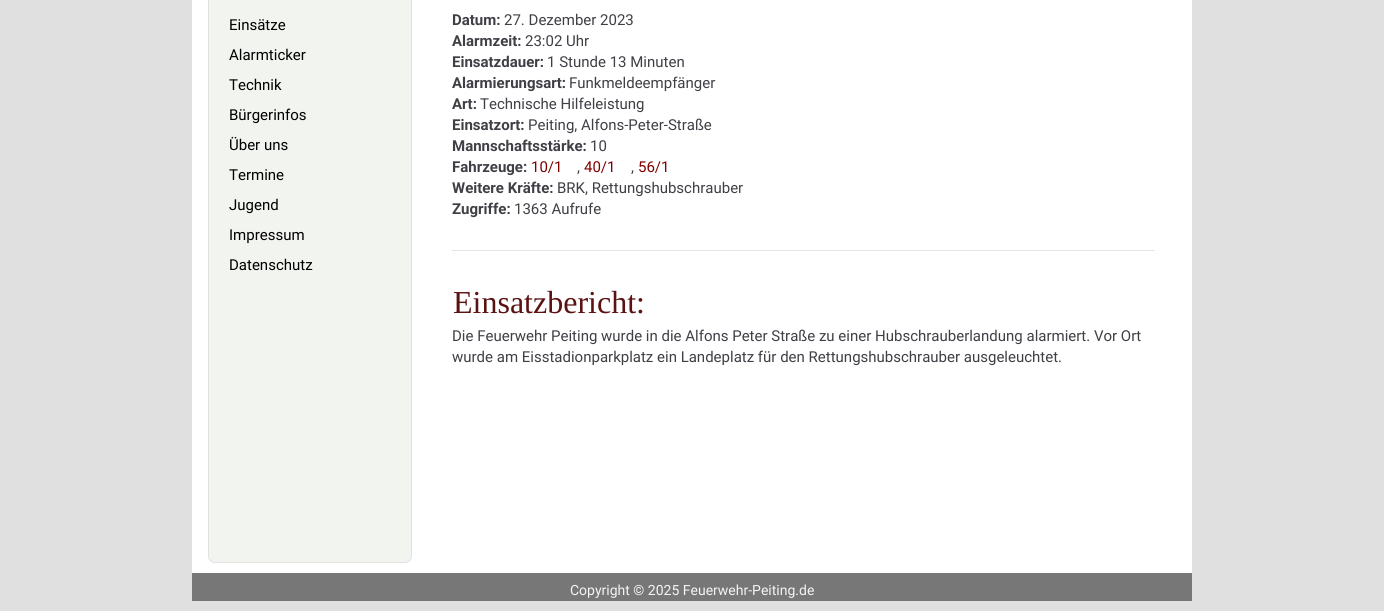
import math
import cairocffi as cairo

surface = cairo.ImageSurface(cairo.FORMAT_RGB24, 1384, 611)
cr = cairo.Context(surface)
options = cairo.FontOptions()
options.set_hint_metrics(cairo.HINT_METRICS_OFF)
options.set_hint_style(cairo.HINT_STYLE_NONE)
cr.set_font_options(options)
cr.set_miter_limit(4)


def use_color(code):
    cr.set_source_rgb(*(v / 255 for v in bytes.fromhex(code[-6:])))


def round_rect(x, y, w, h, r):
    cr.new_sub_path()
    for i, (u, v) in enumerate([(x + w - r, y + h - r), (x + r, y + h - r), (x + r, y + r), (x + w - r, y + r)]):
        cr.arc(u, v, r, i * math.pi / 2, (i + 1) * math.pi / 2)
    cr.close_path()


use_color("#e0e0e0")
cr.paint()
use_color("#ffffff")
cr.rectangle(192, 0, 1000, 573)
cr.fill()
use_color("#f2f4ef")
round_rect(208.5, -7.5, 203, 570, 6.5)
cr.fill_preserve()
use_color("#e1e1e1")
cr.set_line_width(1)
cr.stroke()
cr.select_font_face("Roboto")
cr.set_font_size(15)
use_color("#000000")
cr.move_to(229, 30)
cr.show_text("Einsätze")
cr.move_to(229, 60)
cr.show_text("Alarmticker")
cr.move_to(229, 90)
cr.show_text("Technik")
cr.move_to(229, 120)
cr.show_text("Bürgerinfos")
cr.move_to(229, 150)
cr.show_text("Über uns")
cr.move_to(229, 180)
cr.show_text("Termine")
cr.move_to(229, 210)
cr.show_text("Jugend")
cr.move_to(229, 240)
cr.show_text("Impressum")
cr.move_to(229, 270)
cr.show_text("Datenschutz")
cr.select_font_face("Roboto", cairo.FONT_SLANT_NORMAL, cairo.FONT_WEIGHT_BOLD)
use_color("#3f3f46")
cr.move_to(452, 25)
cr.show_text("Datum:")
cr.select_font_face("Roboto")
cr.move_to(504, 25)
cr.show_text("27. Dezember 2023")
cr.select_font_face("Roboto", cairo.FONT_SLANT_NORMAL, cairo.FONT_WEIGHT_BOLD)
cr.move_to(452, 46)
cr.show_text("Alarmzeit:")
cr.select_font_face("Roboto")
cr.move_to(525, 46)
cr.show_text("23:02 Uhr")
cr.select_font_face("Roboto", cairo.FONT_SLANT_NORMAL, cairo.FONT_WEIGHT_BOLD)
cr.move_to(452, 67)
cr.show_text("Einsatzdauer:")
cr.select_font_face("Roboto")
cr.move_to(547, 67)
cr.show_text("1 Stunde 13 Minuten")
cr.select_font_face("Roboto", cairo.FONT_SLANT_NORMAL, cairo.FONT_WEIGHT_BOLD)
cr.move_to(452, 88)
cr.show_text("Alarmierungsart:")
cr.select_font_face("Roboto")
cr.move_to(569, 88)
cr.show_text("Funkmeldeempfänger")
cr.select_font_face("Roboto", cairo.FONT_SLANT_NORMAL, cairo.FONT_WEIGHT_BOLD)
cr.move_to(452, 109)
cr.show_text("Art:")
cr.select_font_face("Roboto")
cr.move_to(480, 109)
cr.show_text("Technische Hilfeleistung")
cr.select_font_face("Roboto", cairo.FONT_SLANT_NORMAL, cairo.FONT_WEIGHT_BOLD)
cr.move_to(452, 130)
cr.show_text("Einsatzort:")
cr.select_font_face("Roboto")
cr.move_to(528, 130)
cr.show_text("Peiting, Alfons-Peter-Straße")
cr.select_font_face("Roboto", cairo.FONT_SLANT_NORMAL, cairo.FONT_WEIGHT_BOLD)
cr.move_to(452, 151)
cr.show_text("Mannschaftsstärke:")
cr.select_font_face("Roboto")
cr.move_to(590, 151)
cr.show_text("10")
cr.select_font_face("Roboto", cairo.FONT_SLANT_NORMAL, cairo.FONT_WEIGHT_BOLD)
cr.move_to(452, 172)
cr.show_text("Fahrzeuge:")
cr.select_font_face("Roboto")
use_color("#800000")
cr.move_to(531, 172)
cr.show_text("10/1")
use_color("#3f3f46")
cr.move_to(577, 172)
cr.show_text(",")
use_color("#800000")
cr.move_to(584, 172)
cr.show_text("40/1")
use_color("#3f3f46")
cr.move_to(631, 172)
cr.show_text(",")
use_color("#800000")
cr.move_to(638, 172)
cr.show_text("56/1")
cr.select_font_face("Roboto", cairo.FONT_SLANT_NORMAL, cairo.FONT_WEIGHT_BOLD)
use_color("#3f3f46")
cr.move_to(452, 193)
cr.show_text("Weitere Kräfte:")
cr.select_font_face("Roboto")
cr.move_to(557, 193)
cr.show_text("BRK, Rettungshubschrauber")
cr.select_font_face("Roboto", cairo.FONT_SLANT_NORMAL, cairo.FONT_WEIGHT_BOLD)
cr.move_to(452, 214)
cr.show_text("Zugriffe:")
cr.select_font_face("Roboto")
cr.move_to(514, 214)
cr.show_text("1363 Aufrufe")
use_color("#e4e4e7")
cr.rectangle(452, 250, 703, 1)
cr.fill()
cr.select_font_face("Liberation Serif")
cr.set_font_size(32)
use_color("#5b1212")
cr.move_to(453, 313)
cr.show_text("Einsatzbericht:")
cr.select_font_face("Roboto")
cr.set_font_size(15)
use_color("#3f3f46")
cr.move_to(452, 341)
cr.show_text("Die Feuerwehr Peiting wurde in die Alfons Peter Straße zu einer Hubschrauberlandung alarmiert. Vor Ort")
cr.move_to(452, 362)
cr.show_text("wurde am Eisstadionparkplatz ein Landeplatz für den Rettungshubschrauber ausgeleuchtet.")
use_color("#777777")
cr.rectangle(192, 573, 1000, 28)
cr.fill()
cr.set_font_size(14)
use_color("#f4f4f5")
cr.move_to(570, 595)
cr.show_text("Copyright © 2025 Feuerwehr-Peiting.de")
surface.write_to_png("result.png")
